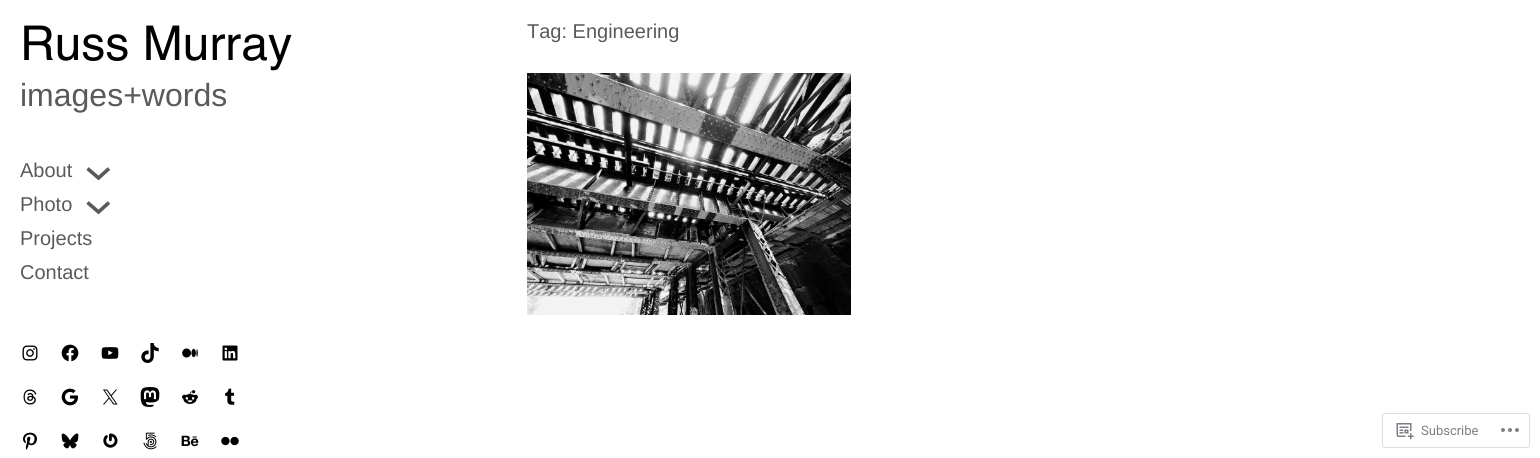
import math
import cairocffi as cairo

surface = cairo.ImageSurface(cairo.FORMAT_RGB24, 1540, 458)
cr = cairo.Context(surface)
options = cairo.FontOptions()
options.set_hint_metrics(cairo.HINT_METRICS_OFF)
options.set_hint_style(cairo.HINT_STYLE_NONE)
cr.set_font_options(options)
cr.set_miter_limit(4)


def use_color(code):
    cr.set_source_rgb(*(v / 255 for v in bytes.fromhex(code[-6:])))


def round_rect(x, y, w, h, r):
    cr.new_sub_path()
    for i, (u, v) in enumerate([(x + w - r, y + h - r), (x + r, y + h - r), (x + r, y + r), (x + w - r, y + r)]):
        cr.arc(u, v, r, i * math.pi / 2, (i + 1) * math.pi / 2)
    cr.close_path()


def picture(path, x, y, w, h):
    cr.save()
    cr.set_source_surface(cairo.ImageSurface.create_from_png(path), x, y)
    cr.rectangle(x, y, w, h)
    cr.fill()
    cr.restore()


use_color("#ffffff")
cr.paint()
cr.select_font_face("Helvetica")
cr.set_font_size(48)
use_color("#000000")
cr.move_to(20, 60)
cr.show_text("Russ Murray")
cr.select_font_face("Liberation Sans")
cr.set_font_size(32)
use_color("#5a5a5a")
cr.move_to(20, 106)
cr.show_text("images+words")
cr.set_font_size(20)
cr.move_to(20, 177)
cr.show_text("About")
cr.new_path()
cr.move_to(87.5, 168.5)
cr.line_to(98.5, 178)
cr.line_to(109, 168.5)
cr.move_to(87.5, 202.5)
cr.line_to(98.5, 212)
cr.line_to(109, 202.5)
cr.set_line_width(3.6)
cr.stroke()
cr.move_to(20, 211)
cr.show_text("Photo")
cr.move_to(20, 245)
cr.show_text("Projects")
cr.move_to(20, 279)
cr.show_text("Contact")
picture("img1.png", 22, 345, 16, 16)
picture("img2.png", 61, 344, 18, 18)
picture("img3.png", 101, 347, 18, 12)
picture("img4.png", 141, 343, 18, 20)
picture("img5.png", 182, 348, 16, 10)
picture("img6.png", 222, 345, 16, 16)
picture("img7.png", 23, 389, 14, 16)
picture("img8.png", 61, 388, 17, 18)
picture("img9.png", 103, 389, 15, 16)
picture("img10.png", 140, 387, 20, 20)
picture("img11.png", 182, 390, 16, 14)
picture("img12.png", 225, 388, 10, 17)
picture("img13.png", 23, 432, 14, 18)
picture("img14.png", 61, 433, 18, 16)
picture("img15.png", 103, 433, 15, 15)
picture("img16.png", 143, 432, 14, 18)
picture("img17.png", 181, 435, 18, 12)
picture("img18.png", 221, 436, 18, 10)
cr.move_to(527, 38)
cr.show_text("Tag: Engineering")
picture("img19.png", 527, 73, 324, 242)
round_rect(1382.5, 413.5, 147, 34, 2.5)
use_color("#dddddf")
cr.set_line_width(1)
cr.stroke()
picture("img20.png", 1396, 423, 18, 17)
cr.select_font_face("Roboto")
cr.set_font_size(13)
use_color("#7b7f85")
cr.move_to(1421, 435)
cr.show_text("Subscribe")
picture("img21.png", 1501, 428, 18, 4)
surface.write_to_png("result.png")
